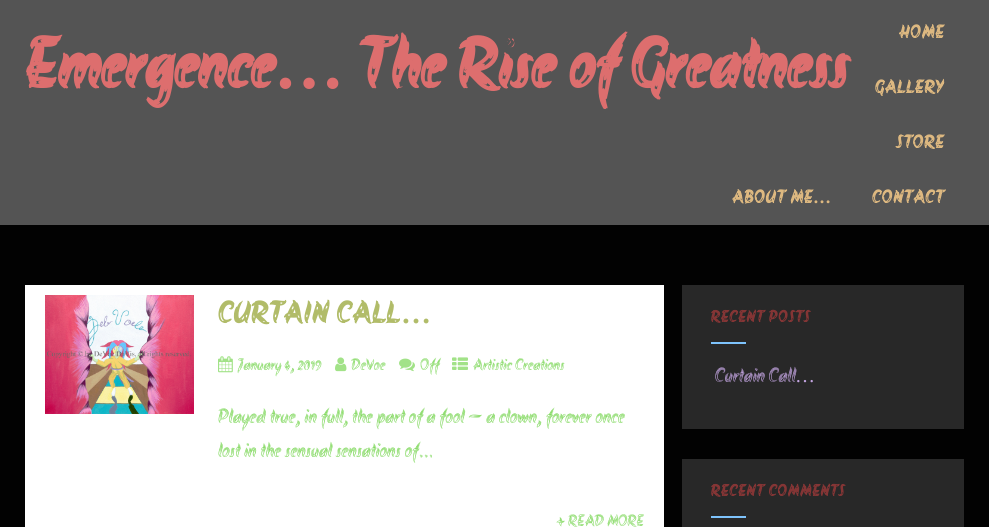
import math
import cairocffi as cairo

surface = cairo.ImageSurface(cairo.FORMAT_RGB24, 989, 527)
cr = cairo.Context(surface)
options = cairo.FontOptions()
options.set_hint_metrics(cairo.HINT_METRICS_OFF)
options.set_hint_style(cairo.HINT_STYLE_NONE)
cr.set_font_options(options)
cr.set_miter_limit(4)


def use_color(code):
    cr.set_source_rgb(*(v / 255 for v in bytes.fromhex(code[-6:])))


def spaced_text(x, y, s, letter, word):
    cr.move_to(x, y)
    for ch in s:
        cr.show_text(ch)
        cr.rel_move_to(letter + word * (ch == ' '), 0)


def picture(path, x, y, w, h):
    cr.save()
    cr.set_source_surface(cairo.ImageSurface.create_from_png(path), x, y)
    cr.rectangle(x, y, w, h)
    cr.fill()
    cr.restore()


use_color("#020202")
cr.paint()
use_color("#545454")
cr.rectangle(0, 0, 989, 225)
cr.fill()
cr.select_font_face("Akronim", cairo.FONT_SLANT_NORMAL, cairo.FONT_WEIGHT_BOLD)
cr.set_font_size(18)
use_color("#ddb880")
spaced_text(899, 38, "HOME", 1, 0)
spaced_text(875, 93, "GALLERY", 1, 0)
spaced_text(896, 148, "STORE", 1, 0)
spaced_text(732, 203, "ABOUT ME", 1, 0)
cr.select_font_face("Liberation Serif", cairo.FONT_SLANT_NORMAL, cairo.FONT_WEIGHT_BOLD)
spaced_text(813, 203, "…", 1, 0)
cr.select_font_face("Akronim", cairo.FONT_SLANT_NORMAL, cairo.FONT_WEIGHT_BOLD)
spaced_text(872, 203, "CONTACT", 1, 0)
cr.set_font_size(70)
use_color("#dd6e6e")
cr.move_to(25, 88)
cr.show_text("Emergence")
cr.select_font_face("Liberation Serif", cairo.FONT_SLANT_NORMAL, cairo.FONT_WEIGHT_BOLD)
cr.move_to(274, 88)
cr.show_text("…")
cr.select_font_face("Akronim", cairo.FONT_SLANT_NORMAL, cairo.FONT_WEIGHT_BOLD)
cr.move_to(358, 88)
cr.show_text("The Rise of Greatness")
use_color("#ffffff")
cr.rectangle(25, 285, 639, 242)
cr.fill()
picture("img1.png", 45, 295, 149, 119)
cr.set_font_size(30)
use_color("#b1bc69")
spaced_text(218, 323, "CURTAIN CALL", 1, 0)
cr.select_font_face("Liberation Serif", cairo.FONT_SLANT_NORMAL, cairo.FONT_WEIGHT_BOLD)
spaced_text(401, 323, "…", 1, 0)
picture("img2.png", 218, 356, 15, 17)
cr.select_font_face("Akronim")
cr.set_font_size(16)
use_color("#7ad655")
cr.move_to(238, 370)
cr.show_text("January 4, 2019")
picture("img3.png", 335, 357, 12, 15)
cr.move_to(351, 370)
cr.show_text("DeVoe")
picture("img4.png", 399, 358, 16, 14)
cr.move_to(420, 370)
cr.show_text("Off")
picture("img5.png", 452, 357, 16, 13)
cr.move_to(473, 370)
cr.show_text("Artistic Creations")
cr.set_font_size(20)
cr.move_to(218, 423)
cr.show_text("Played true, in full, the part of a fool – a clown, forever once")
cr.move_to(218, 457)
cr.show_text("lost in the sensual sensations of...")
cr.set_font_size(16)
cr.move_to(556, 526)
cr.show_text("+ READ MORE")
use_color("#282828")
cr.rectangle(682, 285, 282, 144)
cr.fill()
cr.select_font_face("Akronim", cairo.FONT_SLANT_NORMAL, cairo.FONT_WEIGHT_BOLD)
use_color("#843535")
spaced_text(711, 322, "RECENT POSTS", 1, 0)
use_color("#7ec3fc")
cr.rectangle(711, 342, 35, 2)
cr.fill()
cr.select_font_face("Akronim")
cr.set_font_size(20)
use_color("#c4a5e2")
cr.move_to(715, 382)
cr.show_text("Curtain Call")
cr.select_font_face("Liberation Serif")
cr.move_to(795, 382)
cr.show_text("…")
use_color("#282828")
cr.rectangle(682, 459, 282, 68)
cr.fill()
cr.select_font_face("Akronim", cairo.FONT_SLANT_NORMAL, cairo.FONT_WEIGHT_BOLD)
cr.set_font_size(16)
use_color("#843535")
spaced_text(711, 496, "RECENT COMMENTS", 1, 0)
use_color("#7ec3fc")
cr.rectangle(711, 516, 35, 2)
cr.fill()
surface.write_to_png("result.png")
